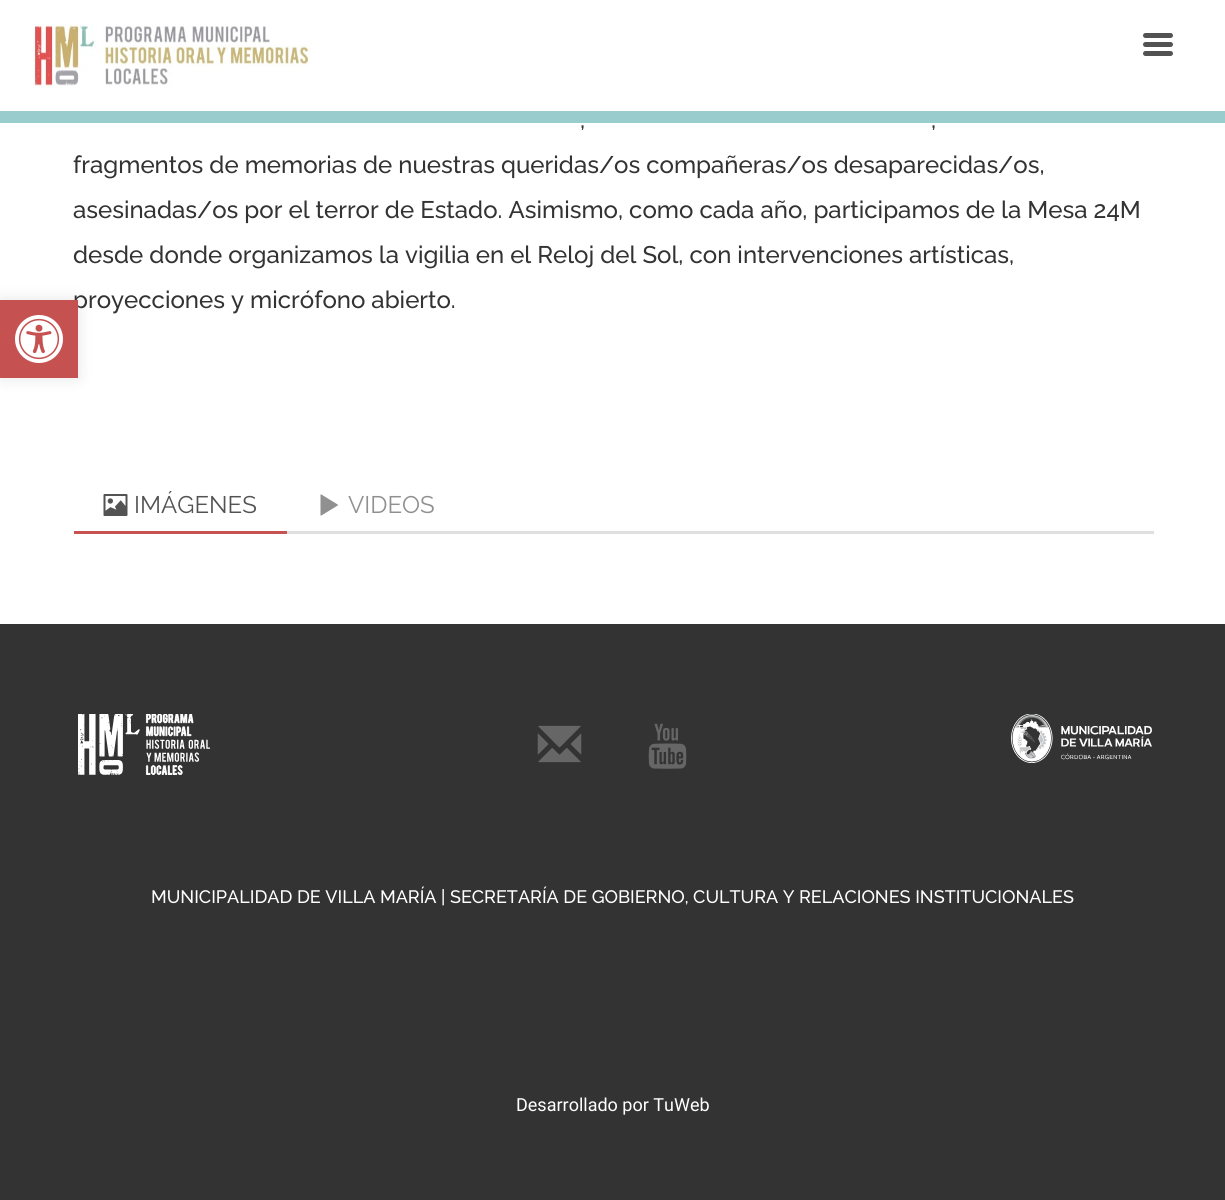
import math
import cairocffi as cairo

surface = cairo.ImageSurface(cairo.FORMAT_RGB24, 1225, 1200)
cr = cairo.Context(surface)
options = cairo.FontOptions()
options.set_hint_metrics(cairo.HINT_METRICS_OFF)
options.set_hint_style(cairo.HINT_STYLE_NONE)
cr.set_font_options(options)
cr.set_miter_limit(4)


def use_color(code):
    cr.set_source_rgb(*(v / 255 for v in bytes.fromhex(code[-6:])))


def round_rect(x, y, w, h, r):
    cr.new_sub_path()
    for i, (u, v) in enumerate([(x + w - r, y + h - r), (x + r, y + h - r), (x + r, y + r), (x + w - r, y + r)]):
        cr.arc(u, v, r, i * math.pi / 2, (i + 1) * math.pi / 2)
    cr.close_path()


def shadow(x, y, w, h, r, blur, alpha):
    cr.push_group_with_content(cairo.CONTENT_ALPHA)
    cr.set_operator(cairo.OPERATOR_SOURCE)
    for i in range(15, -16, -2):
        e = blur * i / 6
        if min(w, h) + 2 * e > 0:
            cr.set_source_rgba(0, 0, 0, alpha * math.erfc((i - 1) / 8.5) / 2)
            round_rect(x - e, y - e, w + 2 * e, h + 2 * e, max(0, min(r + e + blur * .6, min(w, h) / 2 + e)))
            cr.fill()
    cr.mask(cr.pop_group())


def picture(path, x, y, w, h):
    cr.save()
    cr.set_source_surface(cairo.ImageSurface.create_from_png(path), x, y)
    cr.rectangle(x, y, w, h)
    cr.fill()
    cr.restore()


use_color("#ffffff")
cr.paint()
use_color("#000000")
shadow(0, 300, 78, 78, 0, 7.5, 0.1)
cr.select_font_face("Raleway Medium")
cr.set_font_size(24)
use_color("#333333")
cr.move_to(73, 308)
cr.show_text("proyecciones y micrófono abierto.")
use_color("#c55251")
cr.rectangle(0, 300, 78, 78)
cr.fill()
picture("img1.png", 15, 315, 48, 48)
use_color("#99cccc")
cr.rectangle(0, 111, 1225, 12)
cr.fill()
picture("img2.png", 33, 24, 278, 64)
use_color("#525252")
round_rect(1143, 33, 30, 5, 2.5)
cr.fill()
round_rect(1143, 42, 30, 5, 2.5)
cr.fill()
round_rect(1143, 51, 30, 5, 2.5)
cr.fill()
use_color("#333333")
cr.move_to(580, 128)
cr.show_text(",")
cr.move_to(931, 128)
cr.show_text(",")
cr.move_to(73, 173)
cr.show_text("fragmentos de memorias de nuestras queridas/os compañeras/os desaparecidas/os,")
cr.move_to(73, 218)
cr.show_text("asesinadas/os por el terror de Estado. Asimismo, como cada año, participamos de la Mesa 24M")
cr.move_to(73, 263)
cr.show_text("desde donde organizamos la vigilia en el Reloj del Sol, con intervenciones artísticas,")
use_color("#dfdfdf")
cr.rectangle(287, 531, 867, 3)
cr.fill()
use_color("#c65352")
cr.rectangle(74, 531, 213, 3)
cr.fill()
picture("img3.png", 103, 494, 25, 22)
cr.select_font_face("Raleway")
use_color("#535353")
cr.move_to(134, 513)
cr.show_text("IMÁGENES")
picture("img4.png", 320, 494, 18, 22)
use_color("#909090")
cr.move_to(348, 513)
cr.show_text("VIDEOS")
use_color("#333333")
cr.rectangle(0, 624, 1225, 576)
cr.fill()
picture("img5.png", 78, 714, 132, 61)
picture("img6.png", 537, 725, 45, 38)
picture("img7.png", 648, 723, 39, 46)
picture("img8.png", 1011, 714, 141, 49)
cr.select_font_face("Raleway Medium")
cr.set_font_size(18)
use_color("#ffffff")
cr.move_to(151, 903)
cr.show_text("MUNICIPALIDAD DE VILLA MARÍA | SECRETARÍA DE GOBIERNO, CULTURA Y RELACIONES INSTITUCIONALES")
cr.select_font_face("Roboto")
cr.move_to(516, 1111)
cr.show_text("Desarrollado por TuWeb")
surface.write_to_png("result.png")
